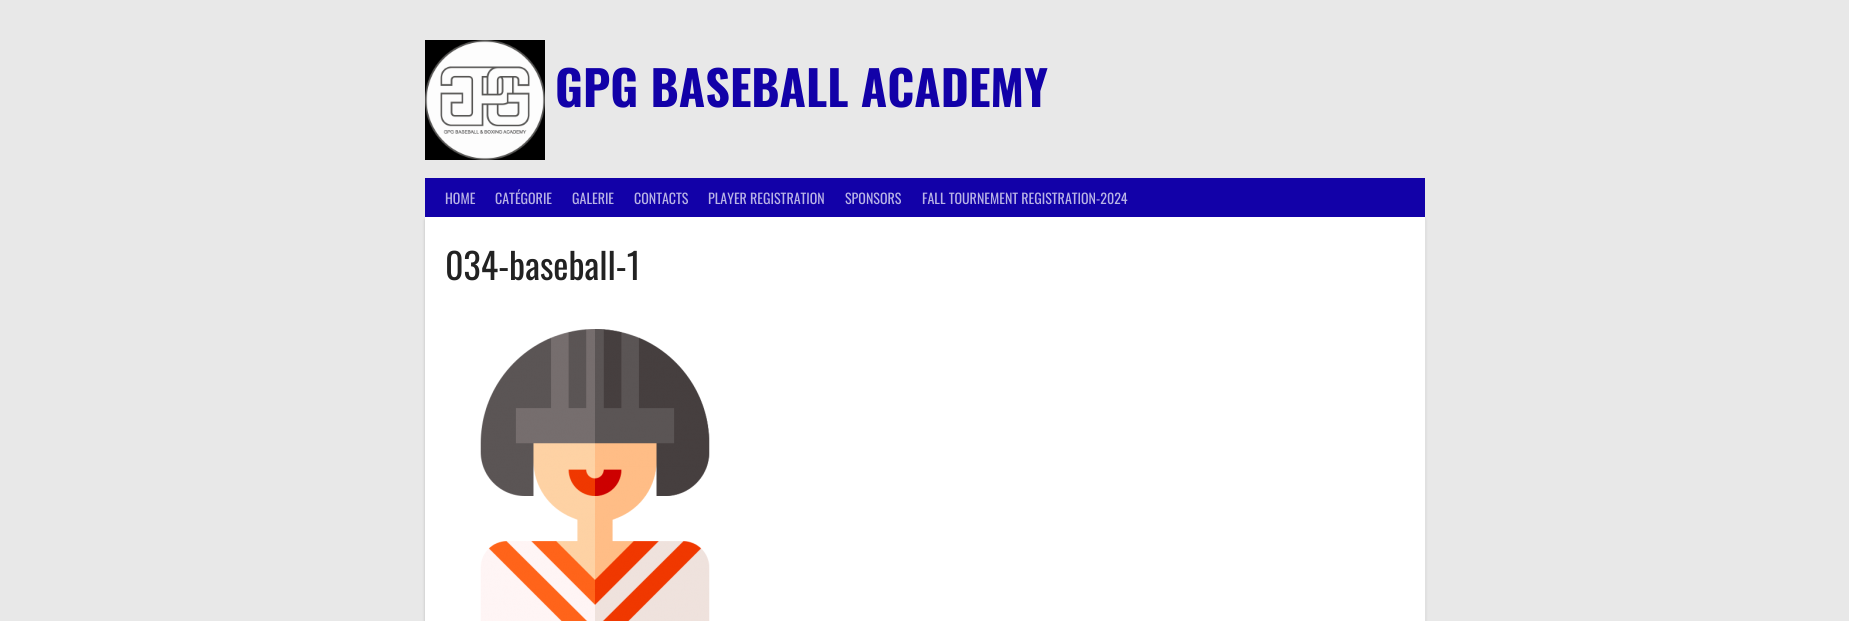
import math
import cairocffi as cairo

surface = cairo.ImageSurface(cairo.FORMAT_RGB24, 1849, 621)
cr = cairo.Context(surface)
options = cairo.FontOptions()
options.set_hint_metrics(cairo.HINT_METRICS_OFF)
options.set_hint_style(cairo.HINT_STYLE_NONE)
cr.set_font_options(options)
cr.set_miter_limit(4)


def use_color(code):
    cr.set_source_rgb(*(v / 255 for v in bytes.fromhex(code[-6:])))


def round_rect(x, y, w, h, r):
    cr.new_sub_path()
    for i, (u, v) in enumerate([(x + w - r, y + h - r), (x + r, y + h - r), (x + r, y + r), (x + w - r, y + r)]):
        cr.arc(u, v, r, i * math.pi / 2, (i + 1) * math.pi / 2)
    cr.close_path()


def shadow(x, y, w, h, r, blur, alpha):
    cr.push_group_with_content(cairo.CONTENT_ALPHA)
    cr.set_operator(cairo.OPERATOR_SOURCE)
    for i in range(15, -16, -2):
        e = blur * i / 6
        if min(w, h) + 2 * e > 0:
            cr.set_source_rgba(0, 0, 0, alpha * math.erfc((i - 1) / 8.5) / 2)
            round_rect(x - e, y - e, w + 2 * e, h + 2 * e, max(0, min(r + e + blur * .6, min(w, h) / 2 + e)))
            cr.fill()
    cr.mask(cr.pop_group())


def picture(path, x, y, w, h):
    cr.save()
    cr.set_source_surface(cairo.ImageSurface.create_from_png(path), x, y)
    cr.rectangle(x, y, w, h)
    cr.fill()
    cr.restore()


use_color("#e8e8e8")
cr.paint()
picture("img1.png", 425, 40, 120, 120)
cr.select_font_face("Oswald", cairo.FONT_SLANT_NORMAL, cairo.FONT_WEIGHT_BOLD)
cr.set_font_size(48)
use_color("#1201a8")
cr.move_to(555, 107)
cr.show_text("GPG BASEBALL ACADEMY")
use_color("#000000")
shadow(425, 220, 1000, 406, 0, 1.5, 0.2)
use_color("#1201a8")
cr.rectangle(425, 178, 1000, 39)
cr.fill()
cr.select_font_face("Oswald")
cr.set_font_size(14)
use_color("#b8b3e5")
cr.move_to(445, 204)
cr.show_text("HOME")
cr.move_to(495, 204)
cr.show_text("CATÉGORIE")
cr.move_to(572, 204)
cr.show_text("GALERIE")
cr.move_to(634, 204)
cr.show_text("CONTACTS")
cr.move_to(708, 204)
cr.show_text("PLAYER REGISTRATION")
cr.move_to(845, 204)
cr.show_text("SPONSORS")
cr.move_to(922, 204)
cr.show_text("FALL TOURNEMENT REGISTRATION-2024")
use_color("#ffffff")
cr.rectangle(425, 217, 1000, 404)
cr.fill()
use_color("#e0e0e0")
cr.rectangle(1425, 217, 1, 404)
cr.fill()
cr.set_font_size(36)
use_color("#222222")
cr.move_to(445, 280)
cr.show_text("034-baseball-1")
picture("img2.png", 480, 329, 230, 292)
surface.write_to_png("result.png")
